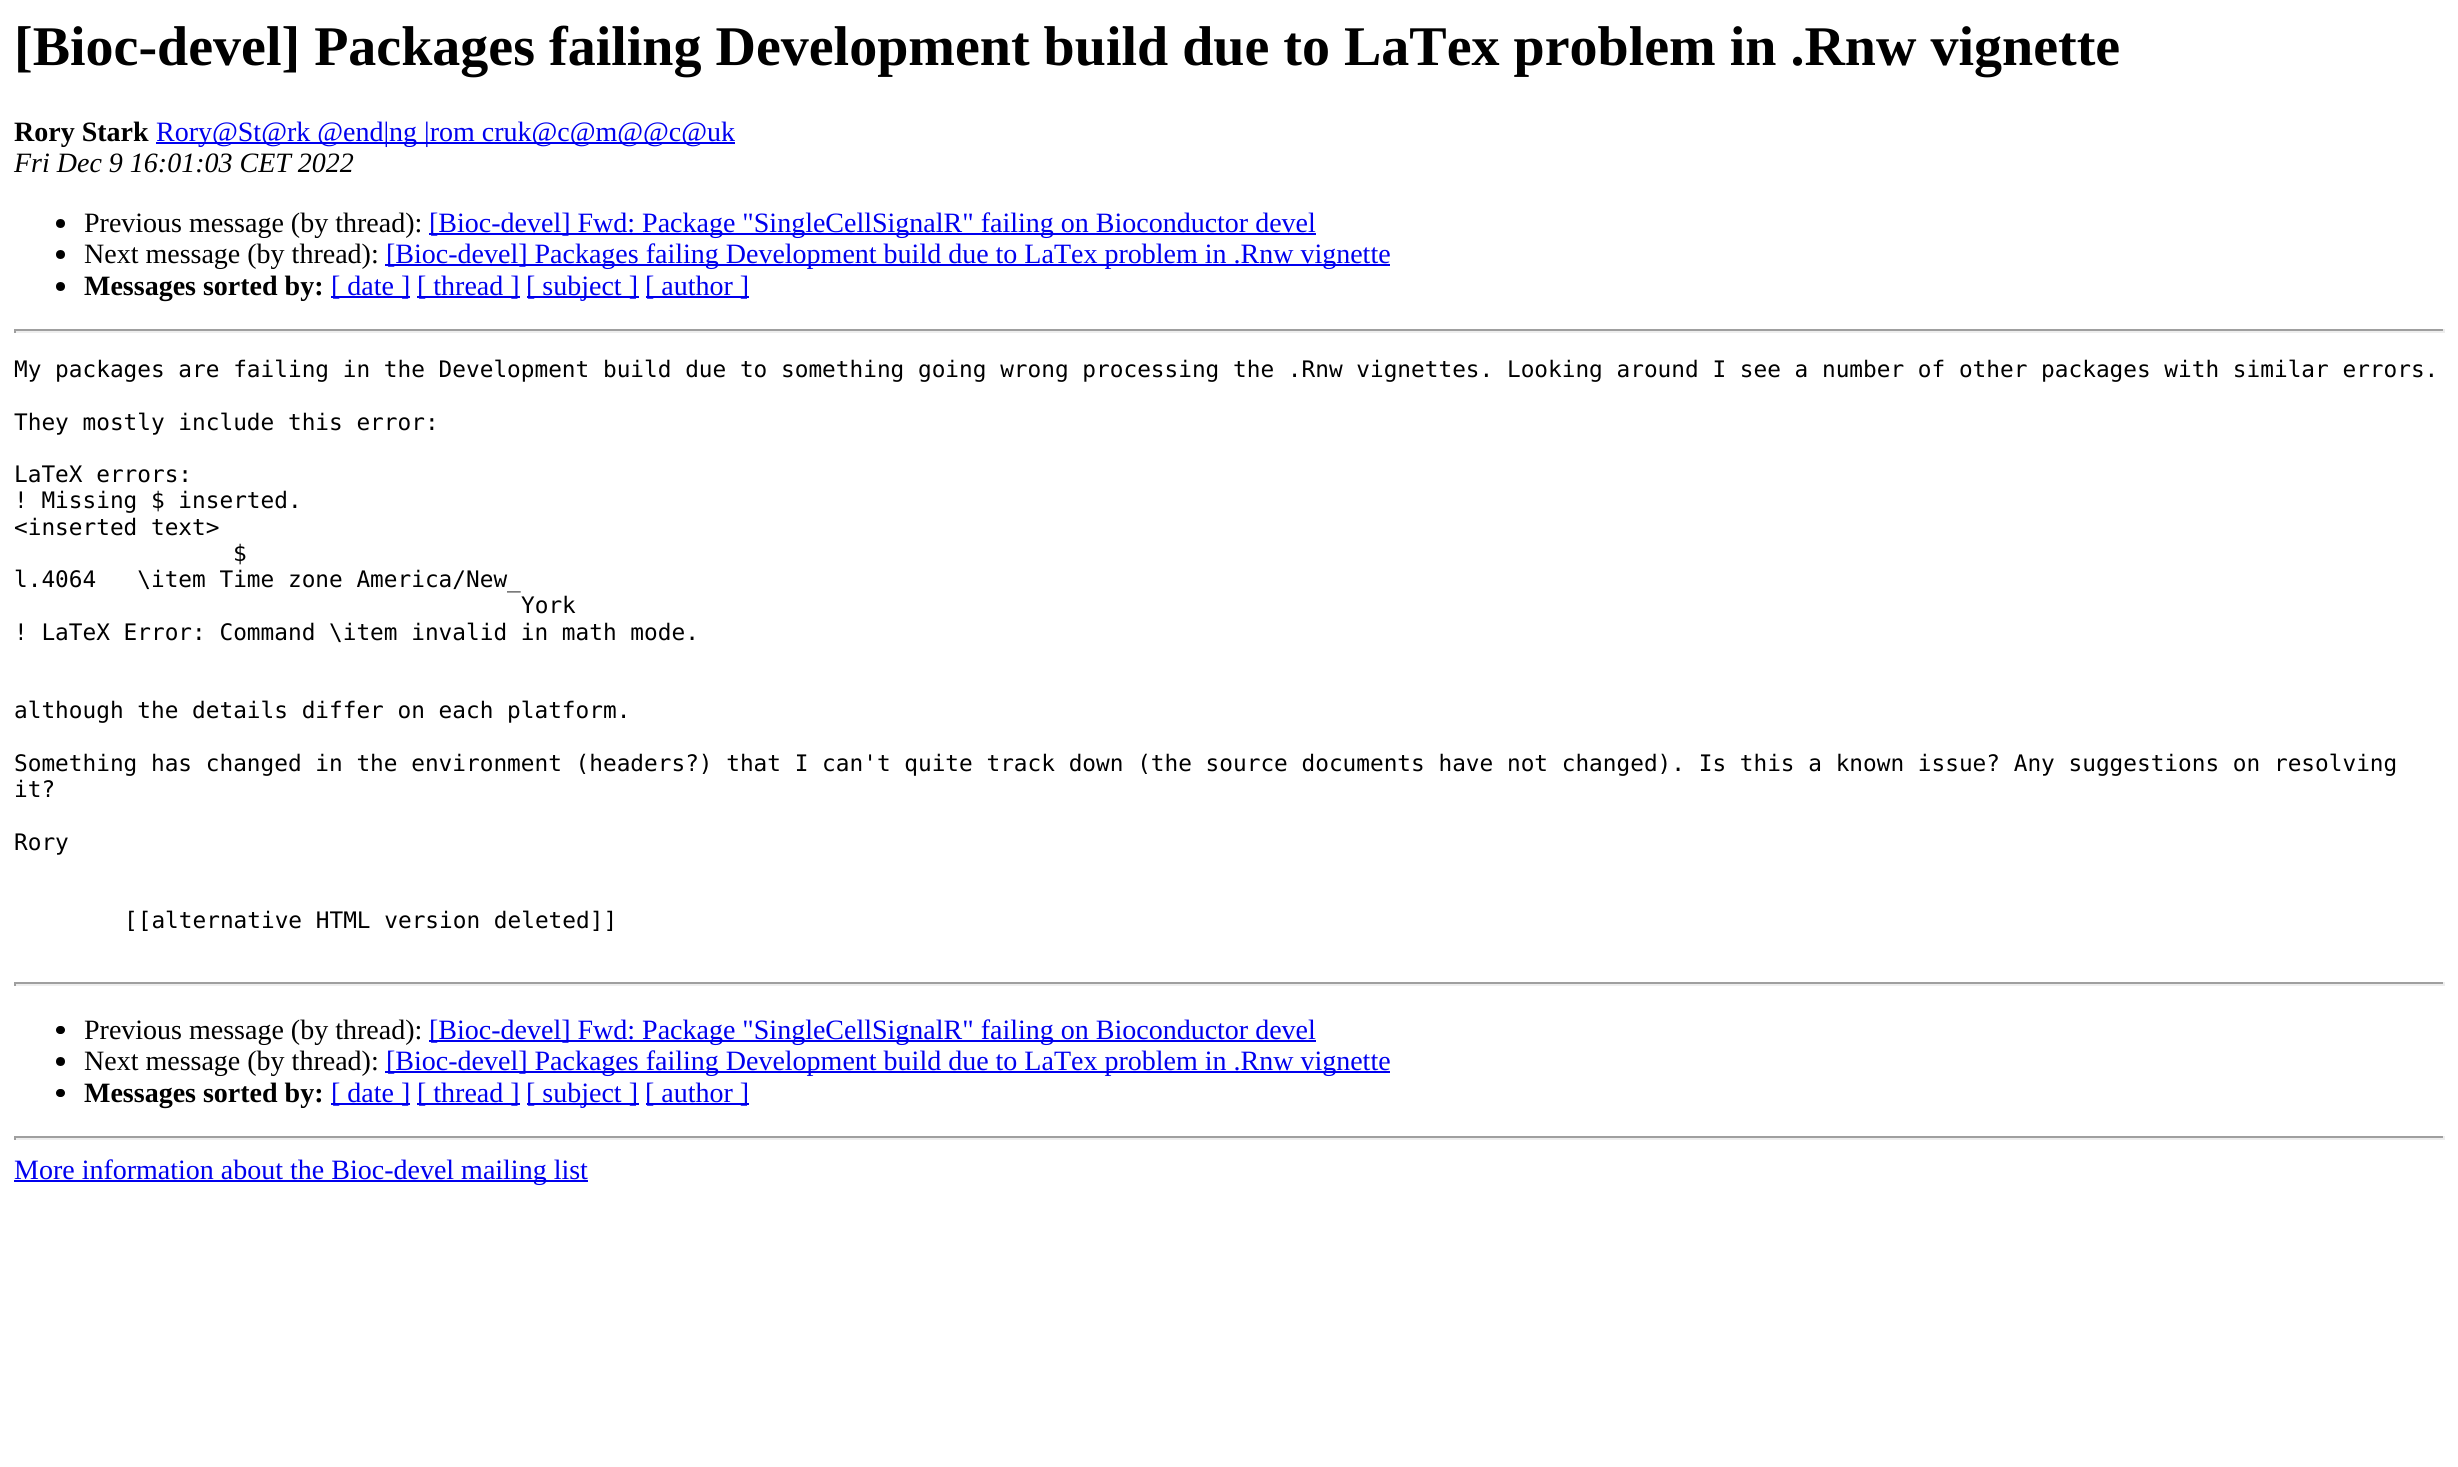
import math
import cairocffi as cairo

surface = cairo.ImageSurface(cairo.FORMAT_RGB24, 2458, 1467)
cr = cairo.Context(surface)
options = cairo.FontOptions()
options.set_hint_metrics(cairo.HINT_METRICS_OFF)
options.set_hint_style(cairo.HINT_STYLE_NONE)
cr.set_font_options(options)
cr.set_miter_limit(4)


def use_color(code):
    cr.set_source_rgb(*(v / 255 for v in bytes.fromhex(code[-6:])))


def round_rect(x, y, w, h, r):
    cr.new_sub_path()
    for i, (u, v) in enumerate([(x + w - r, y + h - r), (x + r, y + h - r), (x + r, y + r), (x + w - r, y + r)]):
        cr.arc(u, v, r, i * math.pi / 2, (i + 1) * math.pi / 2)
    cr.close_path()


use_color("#ffffff")
cr.paint()
cr.select_font_face("Liberation Serif", cairo.FONT_SLANT_NORMAL, cairo.FONT_WEIGHT_BOLD)
cr.set_font_size(56)
use_color("#000000")
cr.move_to(14, 65)
cr.show_text("[Bioc-devel] Packages failing Development build due to LaTex problem in .Rnw vignette")
cr.set_font_size(28)
cr.move_to(14, 141)
cr.show_text("Rory Stark")
use_color("#0000ee")
cr.rectangle(156, 142, 579, 2)
cr.fill()
cr.select_font_face("Liberation Serif")
cr.move_to(156, 141)
cr.show_text("Rory@St@rk @end|ng |rom cruk@c@m@@c@uk")
cr.select_font_face("Liberation Serif", cairo.FONT_SLANT_ITALIC)
use_color("#000000")
cr.move_to(14, 172)
cr.show_text("Fri Dec 9 16:01:03 CET 2022")
cr.new_path()
cr.arc(60.5, 223.5, 4.5, 0, 2 * math.pi)
cr.fill()
cr.select_font_face("Liberation Serif")
cr.move_to(84, 232)
cr.show_text("Previous message (by thread):")
use_color("#0000ee")
cr.rectangle(429, 233, 887, 2)
cr.fill()
cr.move_to(429, 232)
cr.show_text("[Bioc-devel] Fwd: Package \"SingleCellSignalR\" failing on Bioconductor devel")
use_color("#000000")
cr.new_path()
cr.arc(60.5, 254.5, 4.5, 0, 2 * math.pi)
cr.fill()
cr.move_to(84, 263)
cr.show_text("Next message (by thread):")
use_color("#0000ee")
cr.rectangle(385, 264, 1005, 2)
cr.fill()
cr.move_to(386, 263)
cr.show_text("[Bioc-devel] Packages failing Development build due to LaTex problem in .Rnw vignette")
use_color("#000000")
cr.new_path()
cr.arc(60.5, 286.5, 4.5, 0, 2 * math.pi)
cr.fill()
cr.select_font_face("Liberation Serif", cairo.FONT_SLANT_NORMAL, cairo.FONT_WEIGHT_BOLD)
cr.move_to(84, 295)
cr.show_text("Messages sorted by:")
use_color("#0000ee")
cr.rectangle(331, 296, 79, 2)
cr.fill()
cr.select_font_face("Liberation Serif")
cr.move_to(331, 295)
cr.show_text("[ date ]")
cr.rectangle(417, 296, 103, 2)
cr.fill()
cr.move_to(417, 295)
cr.show_text("[ thread ]")
cr.rectangle(527, 296, 112, 2)
cr.fill()
cr.move_to(526, 295)
cr.show_text("[ subject ]")
cr.rectangle(646, 296, 103, 2)
cr.fill()
cr.move_to(645, 295)
cr.show_text("[ author ]")
use_color("#9f9f9f")
cr.rectangle(14, 329, 2431, 2)
cr.fill()
use_color("#eeeeee")
cr.rectangle(2443, 329, 2, 4)
cr.fill()
cr.rectangle(14, 331, 2431, 2)
cr.fill()
use_color("#9f9f9f")
cr.rectangle(14, 329, 2, 4)
cr.fill()
cr.select_font_face("DejaVu Sans Mono")
cr.set_font_size(22.75)
use_color("#000000")
cr.move_to(14, 377)
cr.show_text("My packages are failing in the Development build due to something going wrong processing the .Rnw vignettes. Looking around I see a number of other packages with similar errors.")
cr.move_to(14, 430)
cr.show_text("They mostly include this error:")
cr.move_to(14, 482)
cr.show_text("LaTeX errors:")
cr.move_to(14, 508)
cr.show_text("! Missing $ inserted.")
cr.move_to(14, 535)
cr.show_text("<inserted text>")
cr.move_to(233, 561)
cr.show_text("$")
cr.move_to(14, 587)
cr.show_text("l.4064   \\item Time zone America/New_")
cr.move_to(521, 613)
cr.show_text("York")
cr.move_to(14, 640)
cr.show_text("! LaTeX Error: Command \\item invalid in math mode.")
cr.move_to(14, 718)
cr.show_text("although the details differ on each platform.")
cr.move_to(14, 771)
cr.show_text("Something has changed in the environment (headers?) that I can't quite track down (the source documents have not changed). Is this a known issue? Any suggestions on resolving")
cr.move_to(14, 797)
cr.show_text("it?")
cr.move_to(14, 850)
cr.show_text("Rory")
cr.move_to(124, 928)
cr.show_text("[[alternative HTML version deleted]]")
use_color("#9f9f9f")
cr.rectangle(14, 982, 2431, 2)
cr.fill()
use_color("#eeeeee")
cr.rectangle(2443, 982, 2, 4)
cr.fill()
cr.rectangle(14, 984, 2431, 2)
cr.fill()
use_color("#9f9f9f")
cr.rectangle(14, 982, 2, 4)
cr.fill()
use_color("#000000")
round_rect(56, 1026, 9, 8, 4)
cr.fill()
cr.select_font_face("Liberation Serif")
cr.set_font_size(28)
cr.move_to(84, 1039)
cr.show_text("Previous message (by thread):")
use_color("#0000ee")
cr.rectangle(429, 1040, 887, 2)
cr.fill()
cr.move_to(429, 1039)
cr.show_text("[Bioc-devel] Fwd: Package \"SingleCellSignalR\" failing on Bioconductor devel")
use_color("#000000")
cr.new_path()
cr.arc(60.5, 1061.5, 4.5, 0, 2 * math.pi)
cr.fill()
cr.move_to(84, 1070)
cr.show_text("Next message (by thread):")
use_color("#0000ee")
cr.rectangle(385, 1071, 1005, 2)
cr.fill()
cr.move_to(386, 1070)
cr.show_text("[Bioc-devel] Packages failing Development build due to LaTex problem in .Rnw vignette")
use_color("#000000")
round_rect(56, 1089, 9, 8, 4)
cr.fill()
cr.select_font_face("Liberation Serif", cairo.FONT_SLANT_NORMAL, cairo.FONT_WEIGHT_BOLD)
cr.move_to(84, 1102)
cr.show_text("Messages sorted by:")
use_color("#0000ee")
cr.rectangle(331, 1103, 79, 2)
cr.fill()
cr.select_font_face("Liberation Serif")
cr.move_to(331, 1102)
cr.show_text("[ date ]")
cr.rectangle(417, 1103, 103, 2)
cr.fill()
cr.move_to(417, 1102)
cr.show_text("[ thread ]")
cr.rectangle(527, 1103, 112, 2)
cr.fill()
cr.move_to(526, 1102)
cr.show_text("[ subject ]")
cr.rectangle(646, 1103, 103, 2)
cr.fill()
cr.move_to(645, 1102)
cr.show_text("[ author ]")
use_color("#9f9f9f")
cr.rectangle(14, 1136, 2431, 2)
cr.fill()
use_color("#eeeeee")
cr.rectangle(2443, 1136, 2, 4)
cr.fill()
cr.rectangle(14, 1138, 2431, 2)
cr.fill()
use_color("#9f9f9f")
cr.rectangle(14, 1136, 2, 4)
cr.fill()
use_color("#0000ee")
cr.rectangle(14, 1180, 574, 2)
cr.fill()
cr.move_to(14, 1179)
cr.show_text("More information about the Bioc-devel mailing list")
surface.write_to_png("result.png")
